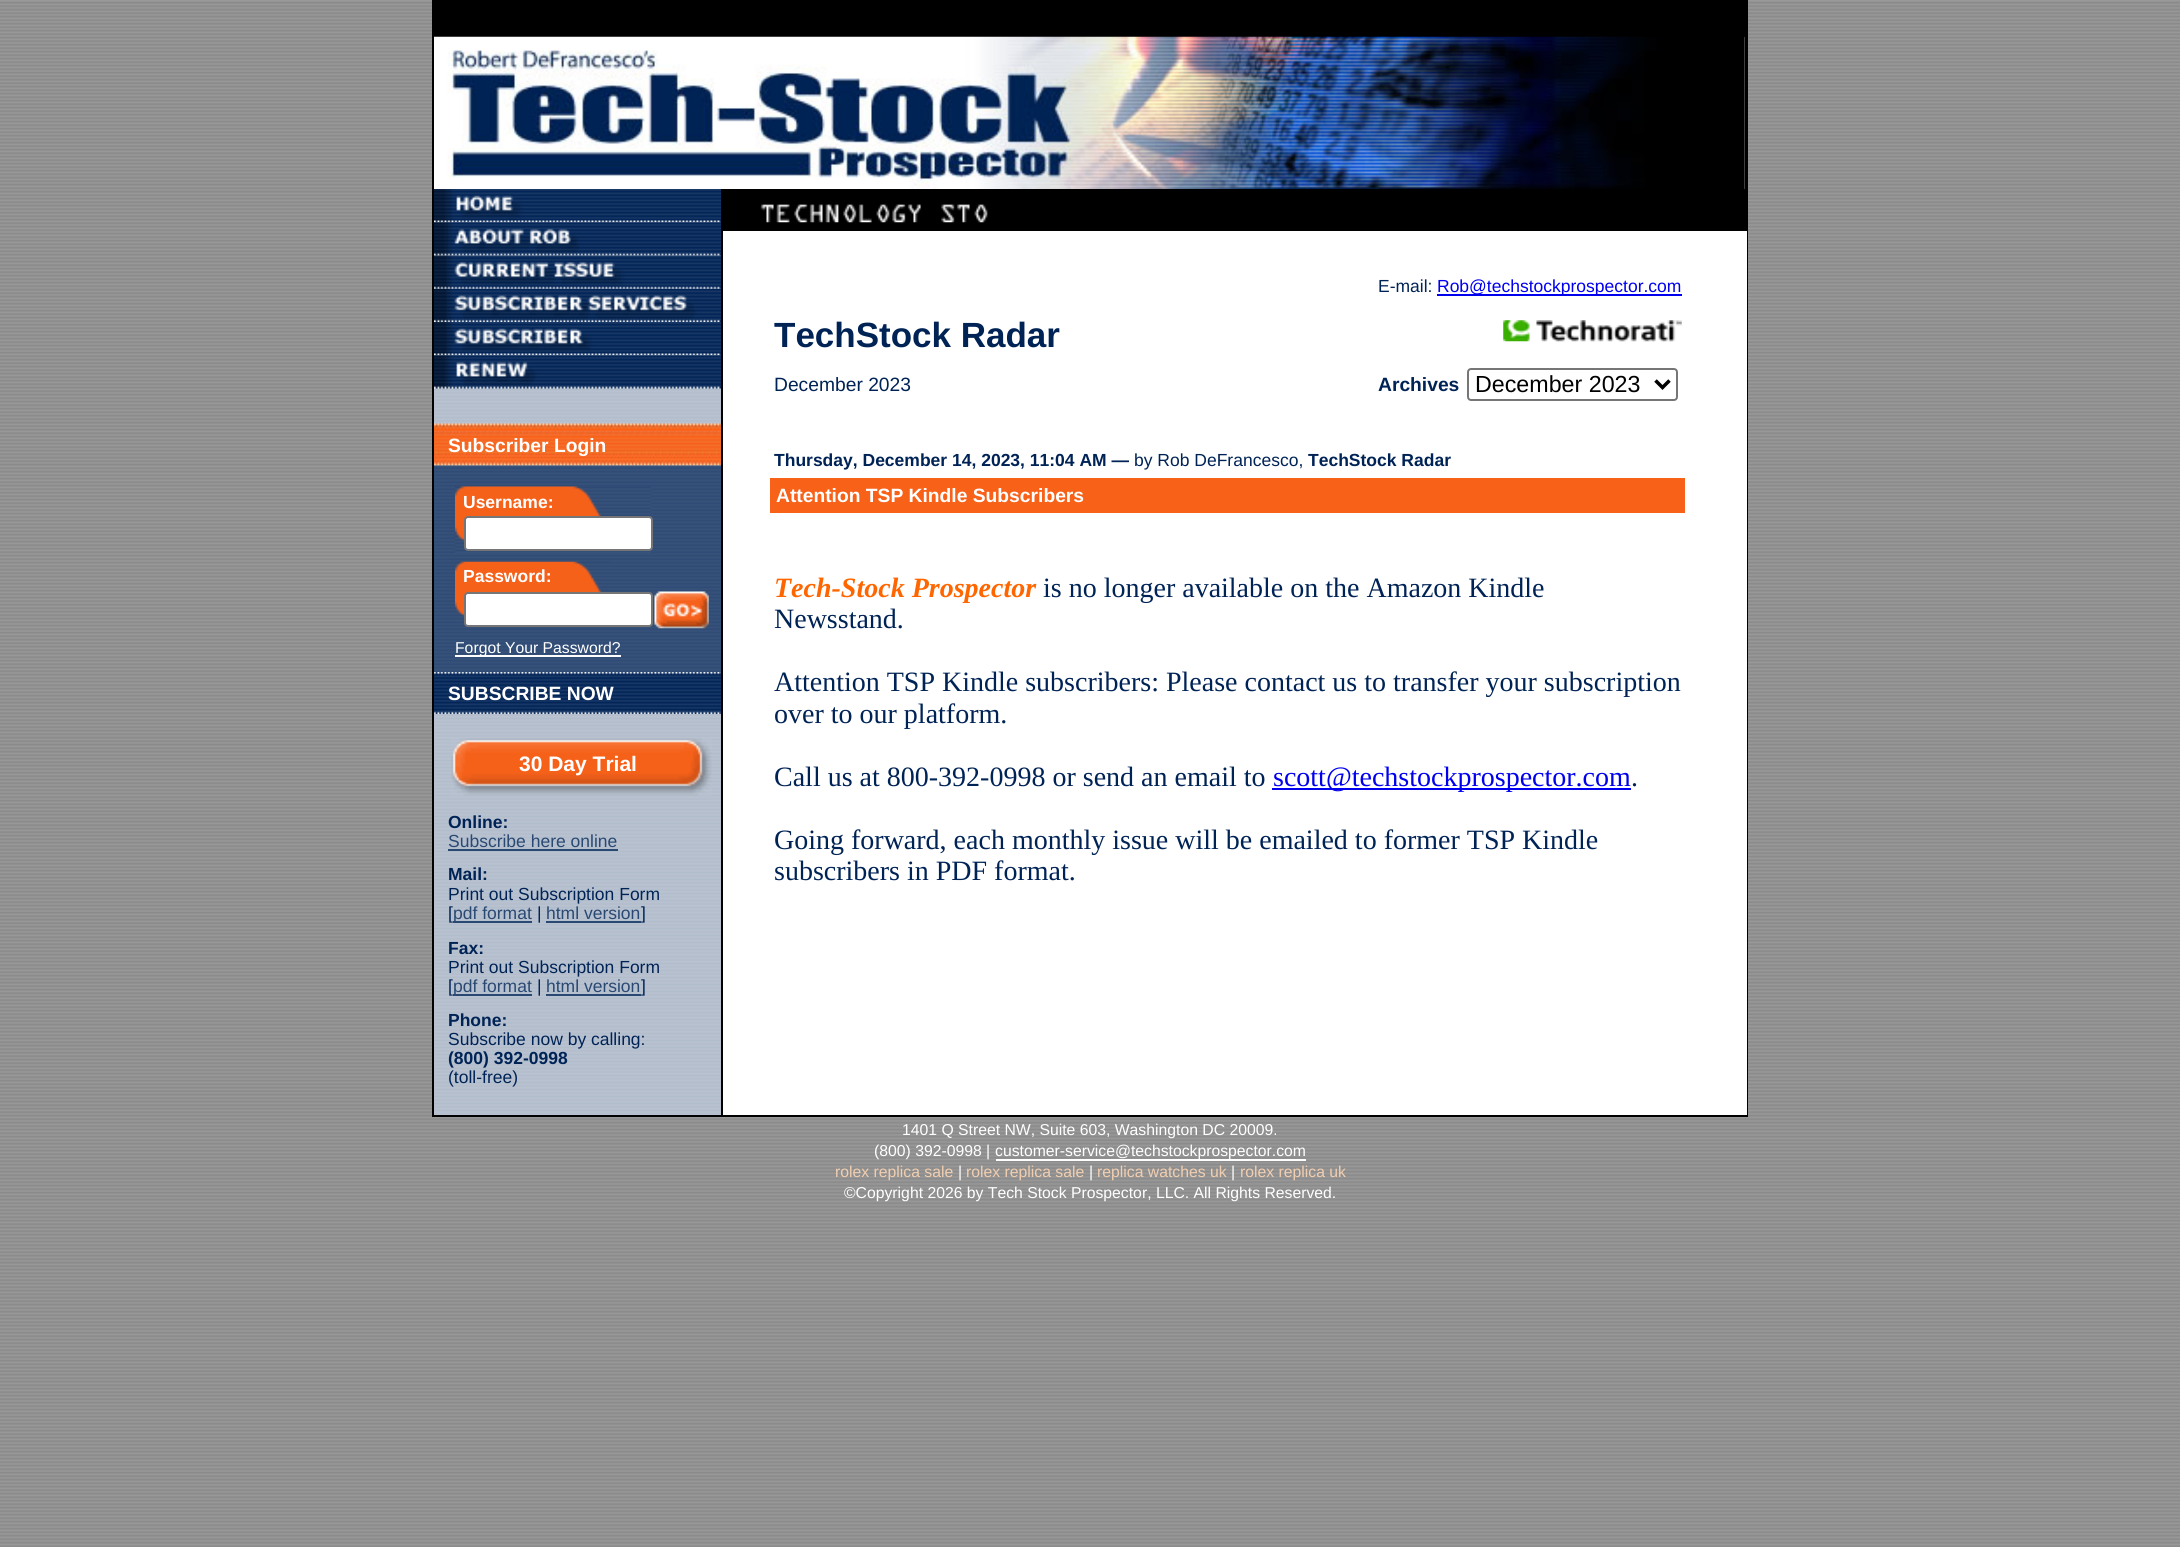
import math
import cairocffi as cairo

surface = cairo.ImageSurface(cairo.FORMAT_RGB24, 2180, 1547)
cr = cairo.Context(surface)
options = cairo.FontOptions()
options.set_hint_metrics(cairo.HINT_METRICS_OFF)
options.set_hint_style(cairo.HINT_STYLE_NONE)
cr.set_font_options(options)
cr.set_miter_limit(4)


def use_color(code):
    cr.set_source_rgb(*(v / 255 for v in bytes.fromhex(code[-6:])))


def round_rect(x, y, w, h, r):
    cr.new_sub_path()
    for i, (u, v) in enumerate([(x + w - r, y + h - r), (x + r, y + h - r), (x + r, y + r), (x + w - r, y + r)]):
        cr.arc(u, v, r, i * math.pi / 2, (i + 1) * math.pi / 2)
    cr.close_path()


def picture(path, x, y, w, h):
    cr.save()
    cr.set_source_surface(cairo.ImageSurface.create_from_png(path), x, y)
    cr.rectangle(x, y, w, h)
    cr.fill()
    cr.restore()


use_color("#999999")
cr.paint()
picture("img1.png", 0, 1, 2180, 1546)
use_color("#000000")
cr.rectangle(432, 0, 1316, 1117)
cr.fill()
use_color("#ffffff")
cr.rectangle(723, 37, 1024, 1078)
cr.fill()
use_color("#000000")
cr.rectangle(1745, 37, 2, 152)
cr.fill()
picture("img2.png", 434, 36, 637, 153)
picture("img3.png", 1071, 36, 674, 153)
picture("img4.png", 434, 222, 287, 892)
picture("img5.png", 434, 189, 287, 34)
picture("img6.png", 434, 222, 287, 34)
picture("img7.png", 434, 255, 287, 34)
picture("img8.png", 434, 288, 287, 34)
picture("img9.png", 434, 322, 287, 34)
picture("img10.png", 434, 355, 287, 34)
picture("img11.png", 434, 423, 287, 43)
cr.select_font_face("Liberation Sans", cairo.FONT_SLANT_NORMAL, cairo.FONT_WEIGHT_BOLD)
cr.set_font_size(19.25)
use_color("#ffffff")
cr.move_to(448, 452)
cr.show_text("Subscriber Login")
picture("img12.png", 434, 465, 287, 207)
picture("img13.png", 455, 486, 196, 67)
cr.set_font_size(17.5)
cr.move_to(463, 508)
cr.show_text("Username:")
round_rect(465, 517, 187, 33, 3)
cr.fill_preserve()
use_color("#767676")
cr.stroke()
picture("img14.png", 455, 561, 155, 56)
use_color("#ffffff")
cr.move_to(463, 582)
cr.show_text("Password:")
round_rect(465, 593, 187, 33, 3)
cr.fill_preserve()
use_color("#767676")
cr.stroke()
picture("img15.png", 654, 591, 55, 38)
use_color("#ffffff")
cr.rectangle(455, 655, 166, 2)
cr.fill()
cr.select_font_face("Liberation Sans")
cr.set_font_size(15.75)
cr.move_to(455, 653)
cr.show_text("Forgot Your Password?")
picture("img16.png", 434, 672, 287, 42)
cr.select_font_face("Liberation Sans", cairo.FONT_SLANT_NORMAL, cairo.FONT_WEIGHT_BOLD)
cr.set_font_size(19.25)
cr.move_to(448, 700)
cr.show_text("SUBSCRIBE NOW")
use_color("#b8c2d0")
cr.rectangle(434, 1114, 287, 1)
cr.fill()
picture("img17.png", 451, 738, 261, 58)
cr.set_font_size(21)
use_color("#ffffff")
cr.move_to(519, 771)
cr.show_text("30 Day Trial")
cr.set_font_size(17.5)
use_color("#002356")
cr.move_to(448, 828)
cr.show_text("Online:")
cr.select_font_face("Liberation Sans")
use_color("#294973")
cr.move_to(448, 847)
cr.show_text("Subscribe here online")
cr.rectangle(448, 849, 170, 2)
cr.fill()
cr.select_font_face("Liberation Sans", cairo.FONT_SLANT_NORMAL, cairo.FONT_WEIGHT_BOLD)
use_color("#002356")
cr.move_to(448, 880)
cr.show_text("Mail:")
cr.select_font_face("Liberation Sans")
cr.move_to(448, 900)
cr.show_text("Print out Subscription Form")
cr.move_to(448, 919)
cr.show_text("[")
use_color("#294973")
cr.rectangle(453, 921, 79, 2)
cr.fill()
cr.move_to(453, 919)
cr.show_text("pdf format")
use_color("#002356")
cr.move_to(537, 919)
cr.show_text("|")
use_color("#294973")
cr.move_to(546, 919)
cr.show_text("html version")
cr.rectangle(546, 921, 95, 2)
cr.fill()
use_color("#002356")
cr.move_to(641, 919)
cr.show_text("]")
cr.select_font_face("Liberation Sans", cairo.FONT_SLANT_NORMAL, cairo.FONT_WEIGHT_BOLD)
cr.move_to(448, 954)
cr.show_text("Fax:")
cr.select_font_face("Liberation Sans")
cr.move_to(448, 973)
cr.show_text("Print out Subscription Form")
cr.move_to(448, 992)
cr.show_text("[")
use_color("#294973")
cr.rectangle(453, 994, 79, 2)
cr.fill()
cr.move_to(453, 992)
cr.show_text("pdf format")
use_color("#002356")
cr.move_to(537, 992)
cr.show_text("|")
use_color("#294973")
cr.move_to(546, 992)
cr.show_text("html version")
cr.rectangle(546, 994, 95, 2)
cr.fill()
use_color("#002356")
cr.move_to(641, 992)
cr.show_text("]")
cr.select_font_face("Liberation Sans", cairo.FONT_SLANT_NORMAL, cairo.FONT_WEIGHT_BOLD)
cr.move_to(448, 1026)
cr.show_text("Phone:")
cr.select_font_face("Liberation Sans")
cr.move_to(448, 1045)
cr.show_text("Subscribe now by calling:")
cr.select_font_face("Liberation Sans", cairo.FONT_SLANT_NORMAL, cairo.FONT_WEIGHT_BOLD)
cr.move_to(448, 1064)
cr.show_text("(800) 392-0998")
cr.select_font_face("Liberation Sans")
cr.move_to(448, 1083)
cr.show_text("(toll-free)")
use_color("#000000")
cr.rectangle(723, 189, 1024, 42)
cr.fill()
picture("img18.png", 760, 204, 228, 19)
use_color("#002356")
cr.move_to(1378, 292)
cr.show_text("E-mail:")
use_color("#0000ee")
cr.rectangle(1437, 294, 245, 2)
cr.fill()
cr.move_to(1437, 292)
cr.show_text("Rob@techstockprospector.com")
picture("img19.png", 1503, 320, 179, 22)
cr.select_font_face("Liberation Sans", cairo.FONT_SLANT_NORMAL, cairo.FONT_WEIGHT_BOLD)
cr.set_font_size(35)
use_color("#002356")
cr.move_to(774, 347)
cr.show_text("TechStock Radar")
cr.select_font_face("Liberation Sans")
cr.set_font_size(19.25)
cr.move_to(774, 391)
cr.show_text("December 2023")
cr.select_font_face("Liberation Sans", cairo.FONT_SLANT_NORMAL, cairo.FONT_WEIGHT_BOLD)
cr.move_to(1378, 391)
cr.show_text("Archives")
round_rect(1468, 369, 209, 31, 3)
use_color("#767676")
cr.stroke()
cr.new_path()
cr.move_to(1655.5, 380.5)
cr.line_to(1662.5, 387.5)
cr.line_to(1669.5, 380.5)
use_color("#000000")
cr.set_line_width(3.5)
cr.stroke()
cr.select_font_face("Liberation Sans")
cr.set_font_size(23.25)
cr.move_to(1475, 392)
cr.show_text("December 2023")
cr.select_font_face("Liberation Sans", cairo.FONT_SLANT_NORMAL, cairo.FONT_WEIGHT_BOLD)
cr.set_font_size(17.5)
use_color("#002356")
cr.move_to(774, 466)
cr.show_text("Thursday, December 14, 2023, 11:04 AM —")
cr.select_font_face("Liberation Sans")
cr.move_to(1134, 466)
cr.show_text("by Rob DeFrancesco,")
cr.select_font_face("Liberation Sans", cairo.FONT_SLANT_NORMAL, cairo.FONT_WEIGHT_BOLD)
cr.move_to(1308, 466)
cr.show_text("TechStock Radar")
use_color("#f76118")
cr.rectangle(770, 478, 915, 35)
cr.fill()
cr.set_font_size(19.25)
use_color("#ffffff")
cr.move_to(776, 502)
cr.show_text("Attention TSP Kindle Subscribers")
cr.select_font_face("Liberation Serif", cairo.FONT_SLANT_ITALIC, cairo.FONT_WEIGHT_BOLD)
cr.set_font_size(28)
use_color("#ff6600")
cr.move_to(774, 597)
cr.show_text("Tech-Stock Prospector")
cr.select_font_face("Liberation Serif")
use_color("#002356")
cr.move_to(1043, 597)
cr.show_text("is no longer available on the Amazon Kindle")
cr.move_to(774, 628)
cr.show_text("Newsstand.")
cr.move_to(774, 691)
cr.show_text("Attention TSP Kindle subscribers: Please contact us to transfer your subscription")
cr.move_to(774, 723)
cr.show_text("over to our platform.")
cr.move_to(774, 786)
cr.show_text("Call us at 800-392-0998 or send an email to")
use_color("#0000ee")
cr.rectangle(1272, 788, 359, 2)
cr.fill()
cr.move_to(1273, 786)
cr.show_text("scott@techstockprospector.com")
use_color("#002356")
cr.move_to(1631, 786)
cr.show_text(".")
cr.move_to(774, 849)
cr.show_text("Going forward, each monthly issue will be emailed to former TSP Kindle")
cr.move_to(774, 880)
cr.show_text("subscribers in PDF format.")
cr.select_font_face("Liberation Sans")
cr.set_font_size(15.75)
use_color("#ffffff")
cr.move_to(902, 1135)
cr.show_text("1401 Q Street NW, Suite 603, Washington DC 20009.")
cr.move_to(874, 1156)
cr.show_text("(800) 392-0998 |")
cr.rectangle(996, 1159, 310, 2)
cr.fill()
cr.move_to(995, 1156)
cr.show_text("customer-service@techstockprospector.com")
use_color("#f1ceb0")
cr.move_to(835, 1177)
cr.show_text("rolex replica sale")
use_color("#ffffff")
cr.move_to(958, 1177)
cr.show_text("|")
use_color("#f1ceb0")
cr.move_to(966, 1177)
cr.show_text("rolex replica sale")
use_color("#ffffff")
cr.move_to(1089, 1177)
cr.show_text("|")
use_color("#f1ceb0")
cr.move_to(1097, 1177)
cr.show_text("replica watches uk")
use_color("#ffffff")
cr.move_to(1231, 1177)
cr.show_text("|")
use_color("#f1ceb0")
cr.move_to(1240, 1177)
cr.show_text("rolex replica uk")
use_color("#ffffff")
cr.move_to(844, 1198)
cr.show_text("©Copyright 2026 by Tech Stock Prospector, LLC. All Rights Reserved.")
surface.write_to_png("result.png")
